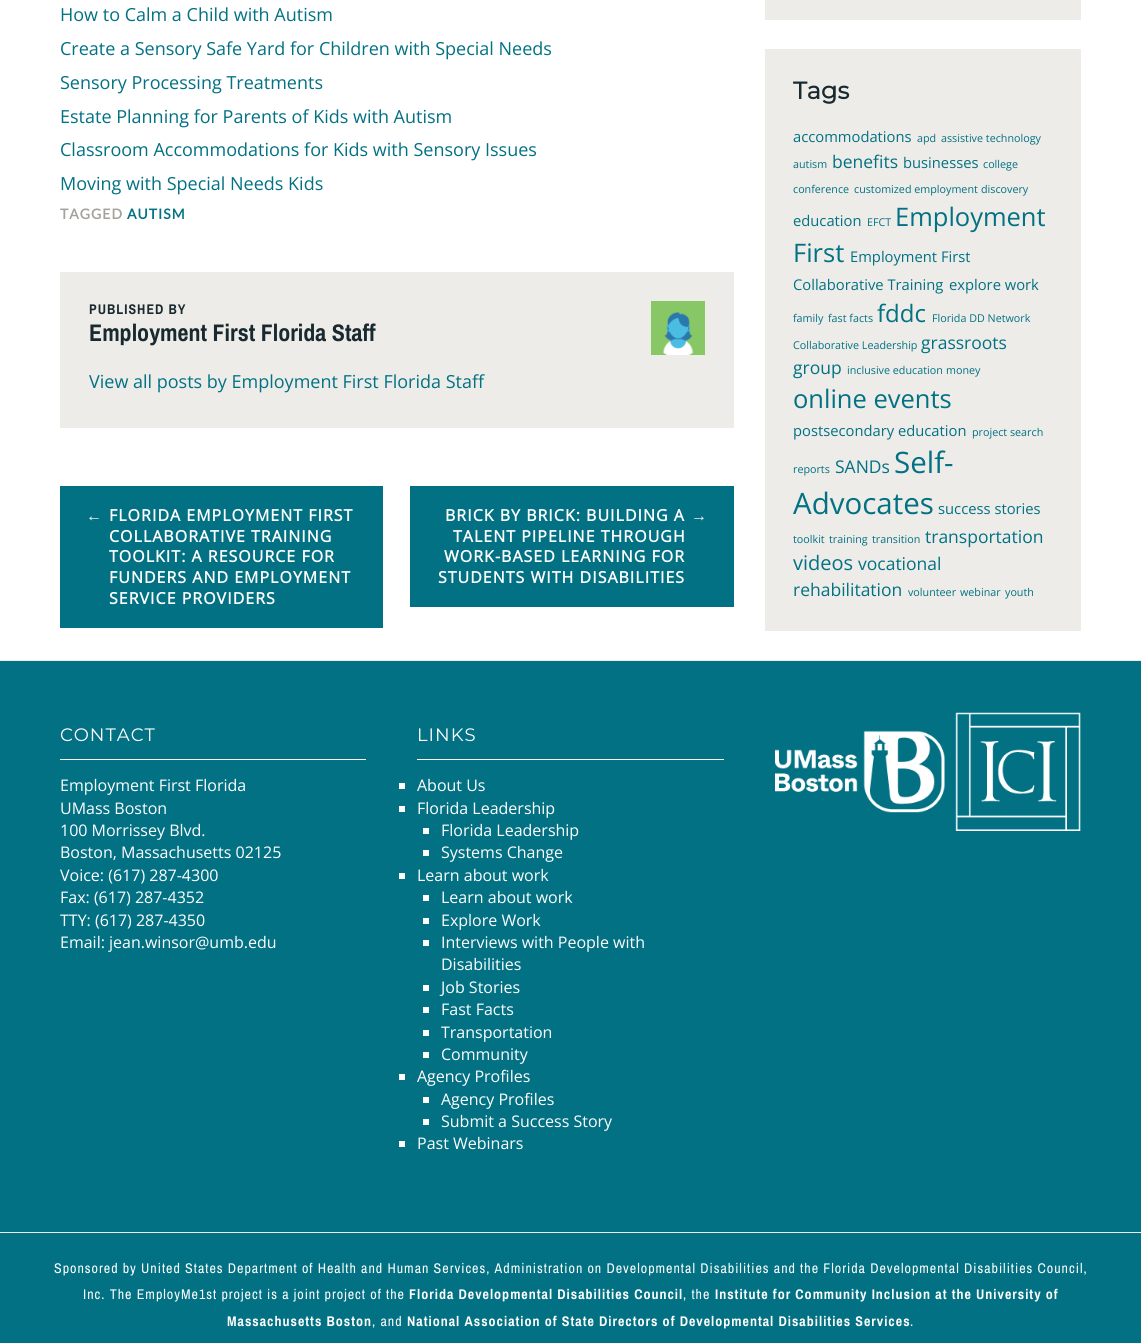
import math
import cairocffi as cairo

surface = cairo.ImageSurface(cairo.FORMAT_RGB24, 1141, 1343)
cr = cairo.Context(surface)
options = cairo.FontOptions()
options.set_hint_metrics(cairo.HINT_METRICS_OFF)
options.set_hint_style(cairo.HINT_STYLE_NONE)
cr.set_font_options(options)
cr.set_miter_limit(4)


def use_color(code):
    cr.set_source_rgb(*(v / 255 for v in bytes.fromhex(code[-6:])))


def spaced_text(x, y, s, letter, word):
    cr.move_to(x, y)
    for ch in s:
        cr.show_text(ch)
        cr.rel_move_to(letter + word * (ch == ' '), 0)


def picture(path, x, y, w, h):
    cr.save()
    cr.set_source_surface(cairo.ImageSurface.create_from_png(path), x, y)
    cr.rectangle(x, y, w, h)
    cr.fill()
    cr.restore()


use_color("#ffffff")
cr.paint()
cr.select_font_face("Open Sans")
cr.set_font_size(18)
use_color("#017183")
cr.move_to(60, 21)
cr.show_text("How to Calm a Child with Autism")
cr.move_to(60, 55)
cr.show_text("Create a Sensory Safe Yard for Children with Special Needs")
cr.move_to(60, 89)
cr.show_text("Sensory Processing Treatments")
cr.move_to(60, 123)
cr.show_text("Estate Planning for Parents of Kids with Autism")
cr.move_to(60, 156)
cr.show_text("Classroom Accommodations for Kids with Sensory Issues")
cr.move_to(60, 190)
cr.show_text("Moving with Special Needs Kids")
cr.select_font_face("Lato", cairo.FONT_SLANT_NORMAL, cairo.FONT_WEIGHT_BOLD)
cr.set_font_size(14)
use_color("#a5a29d")
spaced_text(60, 219, "TAGGED", 1, 0)
use_color("#017183")
spaced_text(127, 219, "AUTISM", 1, 0)
use_color("#eeece8")
cr.rectangle(60, 272, 674, 156)
cr.fill()
cr.select_font_face("Archivo Narrow", cairo.FONT_SLANT_NORMAL, cairo.FONT_WEIGHT_BOLD)
use_color("#192930")
spaced_text(89, 314, "PUBLISHED BY", 1, 0)
cr.set_font_size(24)
cr.move_to(89, 341)
cr.show_text("Employment First Florida Staff")
picture("img1.png", 651, 301, 54, 54)
cr.select_font_face("Open Sans")
cr.set_font_size(18)
use_color("#017183")
cr.move_to(89, 388)
cr.show_text("View all posts by Employment First Florida Staff")
cr.rectangle(60, 486, 323, 142)
cr.fill()
cr.select_font_face("Liberation Sans", cairo.FONT_SLANT_NORMAL, cairo.FONT_WEIGHT_BOLD)
cr.set_font_size(16)
use_color("#ffffff")
spaced_text(86, 521, "←", 1, 0)
cr.select_font_face("Open Sans", cairo.FONT_SLANT_NORMAL, cairo.FONT_WEIGHT_BOLD)
spaced_text(109, 521, "FLORIDA EMPLOYMENT FIRST", 1, 0)
spaced_text(109, 542, "COLLABORATIVE TRAINING", 1, 0)
spaced_text(109, 562, "TOOLKIT: A RESOURCE FOR", 1, 0)
spaced_text(109, 583, "FUNDERS AND EMPLOYMENT", 1, 0)
spaced_text(109, 604, "SERVICE PROVIDERS", 1, 0)
use_color("#017183")
cr.rectangle(410, 486, 324, 121)
cr.fill()
use_color("#ffffff")
spaced_text(445, 521, "BRICK BY BRICK: BUILDING A", 1, 0)
cr.select_font_face("Liberation Sans", cairo.FONT_SLANT_NORMAL, cairo.FONT_WEIGHT_BOLD)
spaced_text(691, 521, "→", 1, 0)
cr.select_font_face("Open Sans", cairo.FONT_SLANT_NORMAL, cairo.FONT_WEIGHT_BOLD)
spaced_text(453, 542, "TALENT PIPELINE THROUGH", 1, 0)
spaced_text(444, 562, "WORK-BASED LEARNING FOR", 1, 0)
spaced_text(438, 583, "STUDENTS WITH DISABILITIES", 1, 0)
use_color("#eeece8")
cr.rectangle(765, 0, 316, 20)
cr.fill()
cr.rectangle(765, 49, 316, 582)
cr.fill()
cr.select_font_face("Montserrat", cairo.FONT_SLANT_NORMAL, cairo.FONT_WEIGHT_BOLD)
cr.set_font_size(24)
use_color("#192930")
cr.move_to(793, 99)
cr.show_text("Tags")
cr.select_font_face("Open Sans")
cr.set_font_size(14.75)
use_color("#017183")
cr.move_to(793, 142)
cr.show_text("accommodations")
cr.set_font_size(10.75)
cr.move_to(917, 142)
cr.show_text("apd")
cr.move_to(941, 142)
cr.show_text("assistive technology")
cr.move_to(793, 168)
cr.show_text("autism")
cr.set_font_size(17.5)
cr.move_to(832, 168)
cr.show_text("benefits")
cr.set_font_size(14.75)
cr.move_to(903, 168)
cr.show_text("businesses")
cr.set_font_size(10.75)
cr.move_to(983, 168)
cr.show_text("college")
cr.move_to(793, 193)
cr.show_text("conference")
cr.move_to(854, 193)
cr.show_text("customized employment")
cr.move_to(981, 193)
cr.show_text("discovery")
cr.set_font_size(14.75)
cr.move_to(793, 226)
cr.show_text("education")
cr.set_font_size(10.75)
cr.move_to(867, 226)
cr.show_text("EFCT")
cr.set_font_size(25.5)
cr.move_to(895, 226)
cr.show_text("Employment")
cr.move_to(793, 262)
cr.show_text("First")
cr.set_font_size(14.75)
cr.move_to(850, 262)
cr.show_text("Employment First")
cr.move_to(793, 290)
cr.show_text("Collaborative Training")
cr.move_to(949, 290)
cr.show_text("explore work")
cr.set_font_size(10.75)
cr.move_to(793, 322)
cr.show_text("family")
cr.move_to(828, 322)
cr.show_text("fast facts")
cr.set_font_size(24)
cr.move_to(877, 322)
cr.show_text("fddc")
cr.set_font_size(10.75)
cr.move_to(932, 322)
cr.show_text("Florida DD Network")
cr.move_to(793, 349)
cr.show_text("Collaborative Leadership")
cr.set_font_size(17.5)
cr.move_to(921, 349)
cr.show_text("grassroots")
cr.move_to(793, 374)
cr.show_text("group")
cr.set_font_size(10.75)
cr.move_to(847, 374)
cr.show_text("inclusive education")
cr.move_to(946, 374)
cr.show_text("money")
cr.set_font_size(25.5)
cr.move_to(793, 408)
cr.show_text("online events")
cr.set_font_size(14.75)
cr.move_to(793, 436)
cr.show_text("postsecondary education")
cr.set_font_size(10.75)
cr.move_to(972, 436)
cr.show_text("project search")
cr.move_to(793, 473)
cr.show_text("reports")
cr.set_font_size(17.5)
cr.move_to(835, 473)
cr.show_text("SANDs")
cr.set_font_size(29.5)
cr.move_to(894, 473)
cr.show_text("Self-")
cr.move_to(793, 514)
cr.show_text("Advocates")
cr.set_font_size(14.75)
cr.move_to(938, 514)
cr.show_text("success stories")
cr.set_font_size(10.75)
cr.move_to(793, 543)
cr.show_text("toolkit")
cr.move_to(829, 543)
cr.show_text("training")
cr.move_to(872, 543)
cr.show_text("transition")
cr.set_font_size(17.5)
cr.move_to(925, 543)
cr.show_text("transportation")
cr.set_font_size(20)
cr.move_to(793, 570)
cr.show_text("videos")
cr.set_font_size(17.5)
cr.move_to(858, 570)
cr.show_text("vocational")
cr.move_to(793, 596)
cr.show_text("rehabilitation")
cr.set_font_size(10.75)
cr.move_to(908, 596)
cr.show_text("volunteer")
cr.move_to(960, 596)
cr.show_text("webinar")
cr.move_to(1005, 596)
cr.show_text("youth")
cr.rectangle(0, 661, 1141, 682)
cr.fill()
use_color("#eeece8")
cr.rectangle(0, 660, 1141, 1)
cr.fill()
use_color("#ffffff")
cr.rectangle(60, 759, 306, 1)
cr.fill()
cr.select_font_face("Montserrat Thin")
cr.set_font_size(18)
spaced_text(60, 741, "CONTACT", 1, 0)
cr.select_font_face("Open Sans")
cr.set_font_size(16)
cr.move_to(60, 791)
cr.show_text("Employment First Florida")
cr.move_to(60, 814)
cr.show_text("UMass Boston")
cr.move_to(60, 836)
cr.show_text("100 Morrissey Blvd.")
cr.move_to(60, 858)
cr.show_text("Boston, Massachusetts 02125")
cr.move_to(60, 881)
cr.show_text("Voice: (617) 287-4300")
cr.move_to(60, 903)
cr.show_text("Fax: (617) 287-4352")
cr.move_to(60, 926)
cr.show_text("TTY: (617) 287-4350")
cr.move_to(60, 948)
cr.show_text("Email: jean.winsor@umb.edu")
cr.rectangle(417, 759, 307, 1)
cr.fill()
cr.select_font_face("Montserrat Thin")
cr.set_font_size(18)
spaced_text(417, 741, "LINKS", 1, 0)
cr.rectangle(399, 783, 6, 6)
cr.fill()
cr.select_font_face("Open Sans")
cr.set_font_size(16)
cr.move_to(417, 791)
cr.show_text("About Us")
cr.rectangle(399, 806, 6, 6)
cr.fill()
cr.move_to(417, 814)
cr.show_text("Florida Leadership")
cr.rectangle(423, 828, 6, 6)
cr.fill()
cr.move_to(441, 836)
cr.show_text("Florida Leadership")
cr.rectangle(423, 850, 6, 6)
cr.fill()
cr.move_to(441, 858)
cr.show_text("Systems Change")
cr.rectangle(399, 873, 6, 6)
cr.fill()
cr.move_to(417, 881)
cr.show_text("Learn about work")
cr.rectangle(423, 895, 6, 6)
cr.fill()
cr.move_to(441, 903)
cr.show_text("Learn about work")
cr.rectangle(423, 918, 6, 6)
cr.fill()
cr.move_to(441, 926)
cr.show_text("Explore Work")
cr.rectangle(423, 940, 6, 6)
cr.fill()
cr.move_to(441, 948)
cr.show_text("Interviews with People with")
cr.move_to(441, 970)
cr.show_text("Disabilities")
cr.rectangle(423, 985, 6, 6)
cr.fill()
cr.move_to(441, 993)
cr.show_text("Job Stories")
cr.rectangle(423, 1007, 6, 6)
cr.fill()
cr.move_to(441, 1015)
cr.show_text("Fast Facts")
cr.rectangle(423, 1030, 6, 6)
cr.fill()
cr.move_to(441, 1038)
cr.show_text("Transportation")
cr.rectangle(423, 1052, 6, 6)
cr.fill()
cr.move_to(441, 1060)
cr.show_text("Community")
cr.rectangle(399, 1074, 6, 6)
cr.fill()
cr.move_to(417, 1082)
cr.show_text("Agency Profiles")
cr.rectangle(423, 1097, 6, 6)
cr.fill()
cr.move_to(441, 1105)
cr.show_text("Agency Profiles")
cr.rectangle(423, 1119, 6, 6)
cr.fill()
cr.move_to(441, 1127)
cr.show_text("Submit a Success Story")
cr.rectangle(399, 1141, 6, 6)
cr.fill()
cr.move_to(417, 1149)
cr.show_text("Past Webinars")
picture("img2.png", 775, 712, 306, 119)
use_color("#eeece8")
cr.rectangle(0, 1232, 1141, 1)
cr.fill()
cr.select_font_face("Archivo Narrow")
cr.set_font_size(14)
use_color("#ffffff")
spaced_text(54, 1273, "Sponsored by United States Department of Health and Human Services, Administration on Developmental Disabilities and the Florida Developmental Disabilities Council,", 1, 0)
spaced_text(83, 1299, "Inc. The EmployMe1st project is a joint project of the", 1, 0)
cr.select_font_face("Archivo Narrow", cairo.FONT_SLANT_NORMAL, cairo.FONT_WEIGHT_BOLD)
spaced_text(409, 1299, "Florida Developmental Disabilities Council", 1, 0)
cr.select_font_face("Archivo Narrow")
spaced_text(683, 1299, ", the", 1, 0)
cr.select_font_face("Archivo Narrow", cairo.FONT_SLANT_NORMAL, cairo.FONT_WEIGHT_BOLD)
spaced_text(715, 1299, "Institute for Community Inclusion at the University of", 1, 0)
spaced_text(227, 1326, "Massachusetts Boston", 1, 0)
cr.select_font_face("Archivo Narrow")
spaced_text(372, 1326, ", and", 1, 0)
cr.select_font_face("Archivo Narrow", cairo.FONT_SLANT_NORMAL, cairo.FONT_WEIGHT_BOLD)
spaced_text(407, 1326, "National Association of State Directors of Developmental Disabilities Services", 1, 0)
cr.select_font_face("Archivo Narrow")
spaced_text(910, 1326, ".", 1, 0)
surface.write_to_png("result.png")
